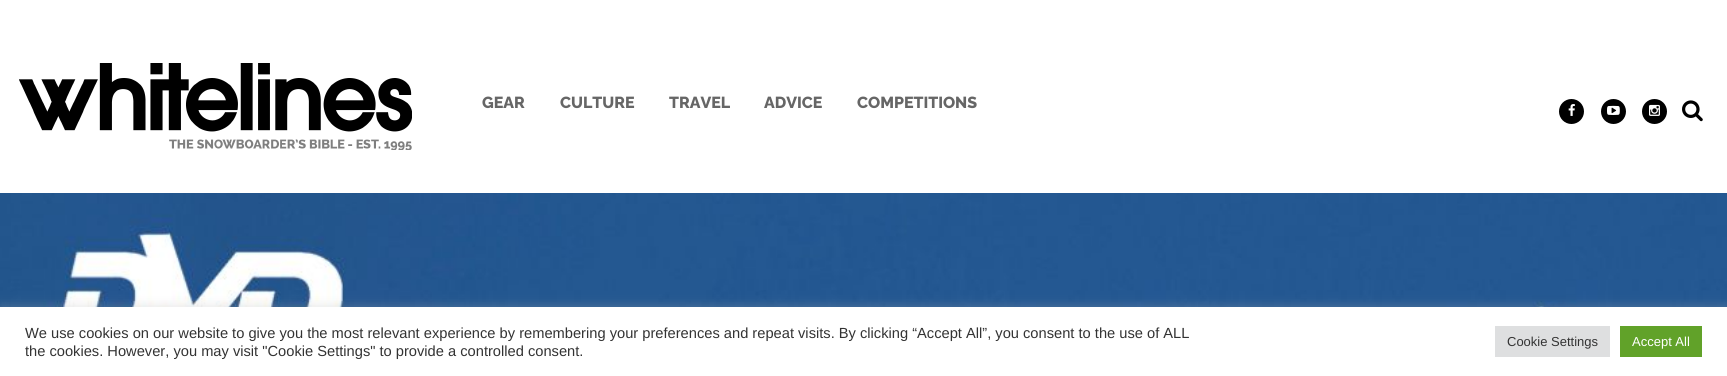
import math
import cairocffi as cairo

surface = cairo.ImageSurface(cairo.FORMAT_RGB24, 1727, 376)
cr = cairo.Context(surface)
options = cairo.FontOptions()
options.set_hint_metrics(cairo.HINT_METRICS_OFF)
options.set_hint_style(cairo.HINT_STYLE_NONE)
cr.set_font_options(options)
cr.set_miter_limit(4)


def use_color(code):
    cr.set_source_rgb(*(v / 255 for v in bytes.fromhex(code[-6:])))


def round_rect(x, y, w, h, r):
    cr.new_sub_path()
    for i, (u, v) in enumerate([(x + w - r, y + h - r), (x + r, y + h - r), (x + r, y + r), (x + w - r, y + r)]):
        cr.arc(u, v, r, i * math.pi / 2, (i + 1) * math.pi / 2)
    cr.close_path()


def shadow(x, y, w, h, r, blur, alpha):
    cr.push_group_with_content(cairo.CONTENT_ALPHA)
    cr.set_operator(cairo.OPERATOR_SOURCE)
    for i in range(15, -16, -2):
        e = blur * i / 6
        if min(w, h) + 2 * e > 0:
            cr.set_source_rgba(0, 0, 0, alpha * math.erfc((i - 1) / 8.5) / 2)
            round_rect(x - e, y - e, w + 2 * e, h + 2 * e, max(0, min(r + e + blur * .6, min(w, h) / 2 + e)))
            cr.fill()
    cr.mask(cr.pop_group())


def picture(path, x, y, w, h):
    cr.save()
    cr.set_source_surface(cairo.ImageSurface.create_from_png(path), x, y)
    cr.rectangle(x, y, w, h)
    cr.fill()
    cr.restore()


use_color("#ffffff")
cr.paint()
picture("img1.png", 19, 63, 393, 87)
cr.select_font_face("Raleway ExtraBold")
cr.set_font_size(16)
use_color("#666666")
cr.move_to(482, 108)
cr.show_text("GEAR")
cr.move_to(560, 108)
cr.show_text("CULTURE")
cr.move_to(669, 108)
cr.show_text("TRAVEL")
cr.move_to(764, 108)
cr.show_text("ADVICE")
cr.move_to(857, 108)
cr.show_text("COMPETITIONS")
use_color("#000000")
cr.new_path()
cr.arc(1571.5, 111.5, 12.5, 0, 2 * math.pi)
cr.fill()
picture("img2.png", 1568, 104, 7, 12)
cr.arc(1613.5, 111.5, 12.5, 0, 2 * math.pi)
cr.fill()
picture("img3.png", 1607, 105, 13, 10)
cr.arc(1654.5, 111.5, 12.5, 0, 2 * math.pi)
cr.fill()
picture("img4.png", 1649, 104, 11, 12)
picture("img5.png", 1682, 100, 21, 22)
picture("img6.png", 0, 193, 1727, 114)
use_color("#acabab")
shadow(0, 306, 1727, 69, 0, 5, 0.3)
use_color("#ffffff")
cr.rectangle(0, 307, 1727, 69)
cr.fill()
cr.select_font_face("Liberation Sans")
cr.set_font_size(14.67)
use_color("#333333")
cr.move_to(25, 338)
cr.show_text("We use cookies on our website to give you the most relevant experience by remembering your preferences and repeat visits. By clicking “Accept All”, you consent to the use of ALL")
cr.move_to(25, 356)
cr.show_text("the cookies. However, you may visit \"Cookie Settings\" to provide a controlled consent.")
use_color("#dedfe0")
cr.rectangle(1495, 326, 115, 31)
cr.fill()
cr.set_font_size(13)
use_color("#333333")
cr.move_to(1507, 346)
cr.show_text("Cookie Settings")
use_color("#61a229")
cr.rectangle(1620, 326, 82, 31)
cr.fill()
use_color("#ffffff")
cr.move_to(1632, 346)
cr.show_text("Accept All")
surface.write_to_png("result.png")
